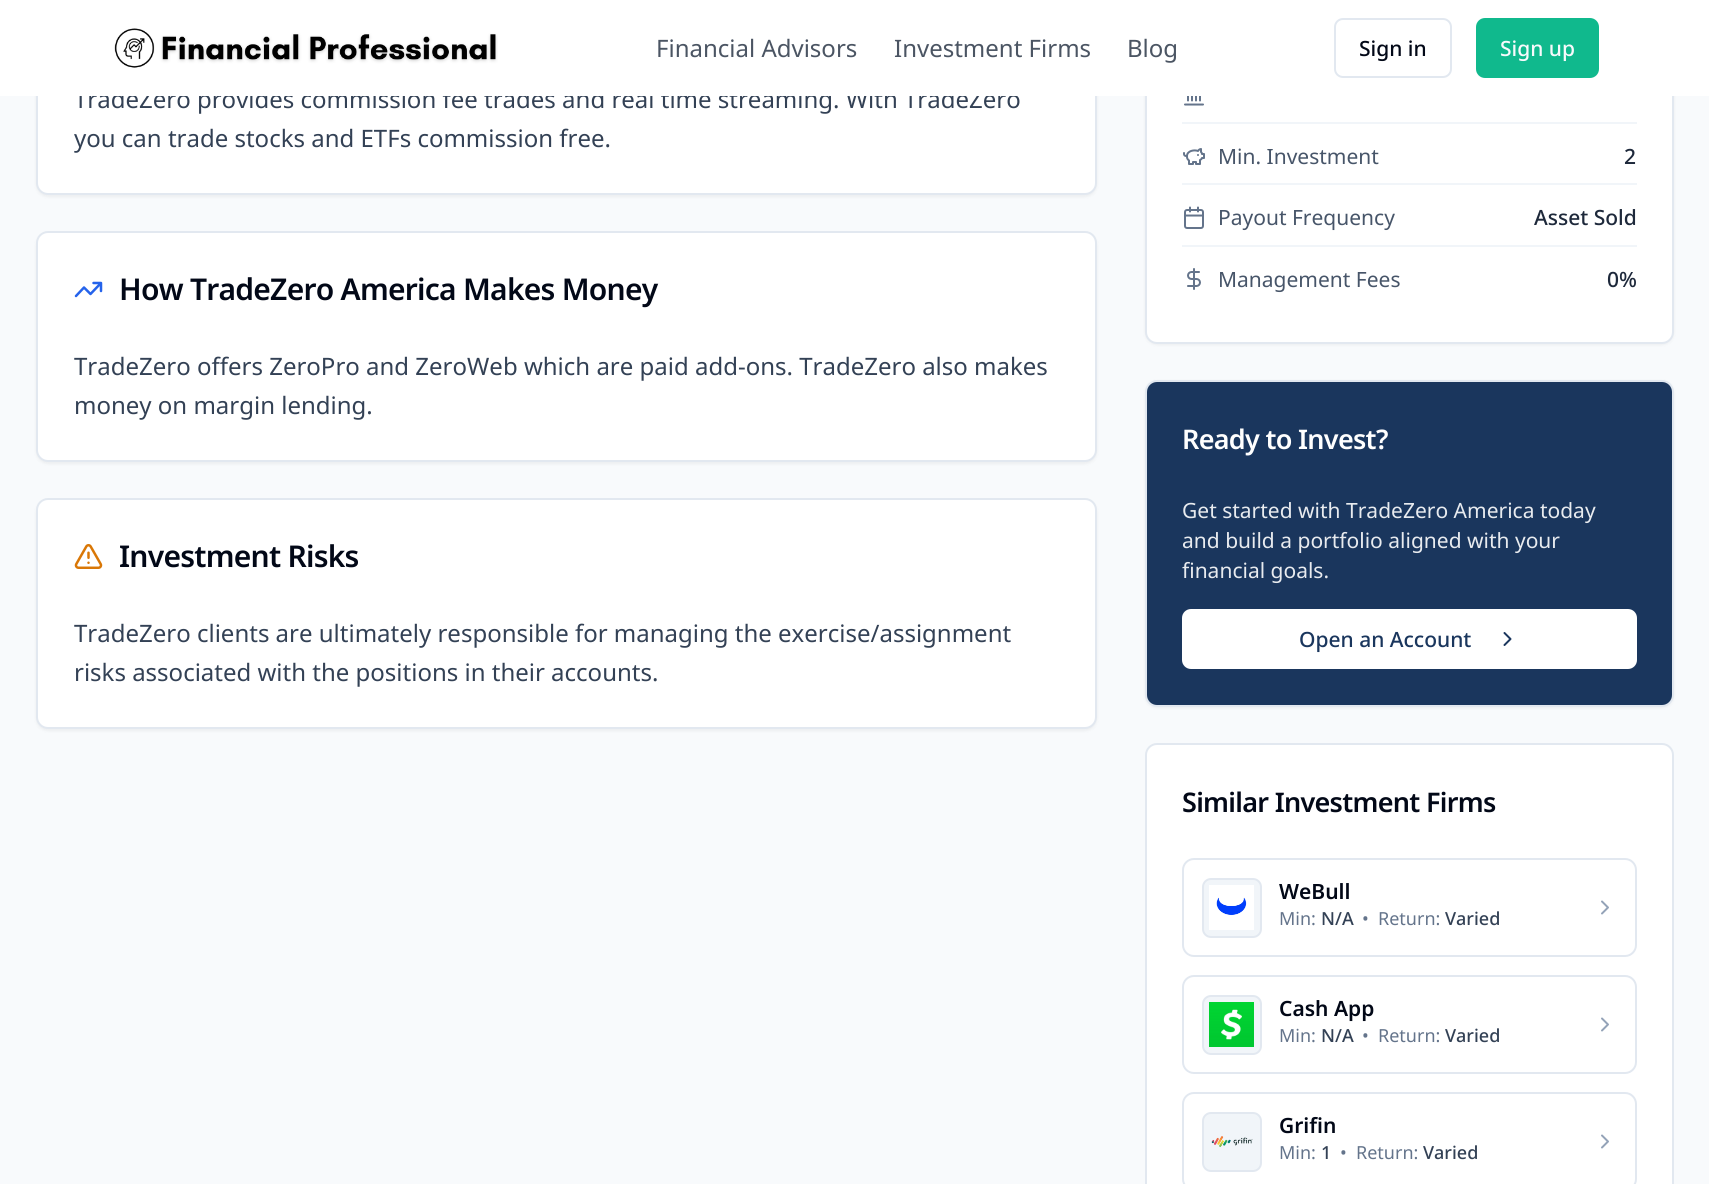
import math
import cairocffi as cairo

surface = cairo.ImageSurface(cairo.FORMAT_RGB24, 1709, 1184)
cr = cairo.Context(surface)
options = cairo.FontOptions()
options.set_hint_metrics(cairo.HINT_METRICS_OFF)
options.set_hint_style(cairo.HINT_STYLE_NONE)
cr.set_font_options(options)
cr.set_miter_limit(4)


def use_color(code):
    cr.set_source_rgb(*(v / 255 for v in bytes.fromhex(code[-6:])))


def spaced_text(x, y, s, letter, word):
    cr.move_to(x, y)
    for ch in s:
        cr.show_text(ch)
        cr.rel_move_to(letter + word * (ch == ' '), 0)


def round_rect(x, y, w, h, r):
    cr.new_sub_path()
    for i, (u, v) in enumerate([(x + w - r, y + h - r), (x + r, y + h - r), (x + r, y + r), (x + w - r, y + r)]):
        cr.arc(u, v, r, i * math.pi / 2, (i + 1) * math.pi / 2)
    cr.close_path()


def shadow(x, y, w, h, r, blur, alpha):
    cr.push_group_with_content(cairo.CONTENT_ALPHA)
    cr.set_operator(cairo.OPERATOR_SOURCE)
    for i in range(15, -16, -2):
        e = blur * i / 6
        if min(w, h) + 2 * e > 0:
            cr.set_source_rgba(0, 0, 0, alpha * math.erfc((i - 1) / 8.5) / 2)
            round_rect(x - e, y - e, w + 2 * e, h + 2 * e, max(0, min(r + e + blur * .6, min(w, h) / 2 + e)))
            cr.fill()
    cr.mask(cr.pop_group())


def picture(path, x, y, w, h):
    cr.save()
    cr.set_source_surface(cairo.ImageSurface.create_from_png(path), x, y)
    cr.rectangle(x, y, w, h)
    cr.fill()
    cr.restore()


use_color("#f8fafc")
cr.paint()
use_color("#000000")
shadow(36, -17, 1061, 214, 12, 1.5, 0.05)
use_color("#ffffff")
round_rect(37, -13, 1059, 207, 11)
cr.fill_preserve()
use_color("#e2e8f0")
cr.stroke()
cr.select_font_face("Noto Sans")
cr.set_font_size(24)
use_color("#334155")
cr.move_to(74, 108)
cr.show_text("TradeZero provides commission fee trades and real time streaming. With TradeZero")
use_color("#000000")
shadow(1145, -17, 529, 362, 12, 1.5, 0.05)
use_color("#ffffff")
round_rect(1146, -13, 527, 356, 11)
cr.fill_preserve()
use_color("#e2e8f0")
cr.stroke()
use_color("#ffffff")
cr.rectangle(0, 0, 1709, 96)
cr.fill()
picture("img1.png", 114, 28, 384, 40)
use_color("#4b5563")
cr.move_to(656, 57)
cr.show_text("Financial Advisors")
cr.move_to(894, 57)
cr.show_text("Investment Firms")
cr.move_to(1127, 57)
cr.show_text("Blog")
round_rect(1335, 19, 116, 58, 8)
use_color("#e2e8f0")
cr.stroke()
cr.select_font_face("Noto Sans Medium")
cr.set_font_size(21)
use_color("#020817")
cr.move_to(1359, 56)
cr.show_text("Sign in")
use_color("#10b98d")
round_rect(1476, 18, 123, 60, 9)
cr.fill()
use_color("#f8fafc")
cr.move_to(1500, 56)
cr.show_text("Sign up")
cr.select_font_face("Noto Sans")
cr.set_font_size(24)
use_color("#334155")
cr.move_to(74, 147)
cr.show_text("you can trade stocks and ETFs commission free.")
use_color("#000000")
shadow(36, 233, 1061, 231, 12, 1.5, 0.05)
use_color("#ffffff")
round_rect(37, 232, 1059, 229, 11)
cr.fill_preserve()
use_color("#e2e8f0")
cr.stroke()
cr.new_path()
cr.move_to(101, 283)
cr.line_to(90.5, 294)
cr.line_to(84, 287.5)
cr.line_to(76, 296)
cr.move_to(93.5, 283)
cr.line_to(101, 283)
cr.line_to(101, 291)
use_color("#2563eb")
cr.set_line_width(2.5)
cr.set_line_cap(cairo.LINE_CAP_ROUND)
cr.set_line_join(cairo.LINE_JOIN_ROUND)
cr.stroke()
cr.select_font_face("Noto Sans SemiBold")
cr.set_font_size(30)
use_color("#020817")
spaced_text(119, 300, "How TradeZero America Makes Money", -0.75, 0)
cr.select_font_face("Noto Sans")
cr.set_font_size(24)
use_color("#334155")
cr.move_to(74, 375)
cr.show_text("TradeZero offers ZeroPro and ZeroWeb which are paid add-ons. TradeZero also makes")
cr.move_to(74, 414)
cr.show_text("money on margin lending.")
use_color("#000000")
shadow(36, 500, 1061, 231, 12, 1.5, 0.05)
use_color("#ffffff")
round_rect(37, 499, 1059, 229, 11)
cr.fill_preserve()
use_color("#e2e8f0")
cr.set_line_width(2)
cr.set_line_cap(cairo.LINE_CAP_BUTT)
cr.set_line_join(cairo.LINE_JOIN_MITER)
cr.stroke()
picture("img2.png", 74, 544, 29, 25)
cr.select_font_face("Noto Sans SemiBold")
cr.set_font_size(30)
use_color("#020817")
spaced_text(119, 567, "Investment Risks", -0.75, 0)
cr.select_font_face("Noto Sans")
cr.set_font_size(24)
use_color("#334155")
cr.move_to(74, 642)
cr.show_text("TradeZero clients are ultimately responsible for managing the exercise/assignment")
cr.move_to(74, 681)
cr.show_text("risks associated with the positions in their accounts.")
use_color("#f1f5f9")
cr.rectangle(1182, 122, 455, 2)
cr.fill()
picture("img3.png", 1184, 96, 20, 10)
cr.rectangle(1182, 183, 455, 2)
cr.fill()
picture("img4.png", 1183, 148, 22, 17)
cr.set_font_size(21)
use_color("#475569")
cr.move_to(1218, 164)
cr.show_text("Min. Investment")
cr.select_font_face("Noto Sans Medium")
use_color("#1e293b")
cr.move_to(1624, 164)
cr.show_text("2")
use_color("#f1f5f9")
cr.rectangle(1182, 245, 455, 2)
cr.fill()
picture("img5.png", 1184, 206, 20, 23)
cr.select_font_face("Noto Sans")
use_color("#475569")
cr.move_to(1218, 225)
cr.show_text("Payout Frequency")
cr.select_font_face("Noto Sans Medium")
use_color("#1e293b")
cr.move_to(1534, 225)
cr.show_text("Asset Sold")
picture("img6.png", 1187, 268, 14, 22)
cr.select_font_face("Noto Sans")
use_color("#475569")
cr.move_to(1218, 287)
cr.show_text("Management Fees")
cr.select_font_face("Noto Sans Medium")
use_color("#1e293b")
cr.move_to(1607, 287)
cr.show_text("0%")
use_color("#000000")
shadow(1145, 381, 529, 327, 12, 1.5, 0.05)
use_color("#1a365d")
round_rect(1146, 381, 527, 325, 11)
cr.fill_preserve()
use_color("#e2e8f0")
cr.stroke()
cr.select_font_face("Noto Sans SemiBold")
cr.set_font_size(27)
use_color("#ffffff")
spaced_text(1182, 449, "Ready to Invest?", -0.7, 0)
cr.select_font_face("Noto Sans")
cr.set_font_size(21)
use_color("#e8ebef")
cr.move_to(1182, 518)
cr.show_text("Get started with TradeZero America today")
cr.move_to(1182, 548)
cr.show_text("and build a portfolio aligned with your")
cr.move_to(1182, 578)
cr.show_text("financial goals.")
use_color("#ffffff")
round_rect(1182, 609, 455, 60, 9)
cr.fill()
cr.select_font_face("Noto Sans Medium")
use_color("#1a365d")
cr.move_to(1299, 647)
cr.show_text("Open an Account")
cr.new_path()
cr.move_to(1504.5, 645)
cr.line_to(1510.5, 639)
cr.line_to(1504.5, 633)
cr.set_line_cap(cairo.LINE_CAP_ROUND)
cr.set_line_join(cairo.LINE_JOIN_ROUND)
cr.stroke()
use_color("#ffffff")
round_rect(1146, 744, 527, 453, 11)
cr.fill_preserve()
use_color("#e2e8f0")
cr.set_line_cap(cairo.LINE_CAP_BUTT)
cr.set_line_join(cairo.LINE_JOIN_MITER)
cr.stroke()
cr.select_font_face("Noto Sans SemiBold")
cr.set_font_size(27)
use_color("#020817")
spaced_text(1182, 812, "Similar Investment Firms", -0.7, 0)
round_rect(1183, 859, 453, 97, 11)
use_color("#e2e8f0")
cr.stroke()
use_color("#f1f5f9")
round_rect(1203, 879, 58, 58, 8)
cr.fill_preserve()
use_color("#e2e8f0")
cr.stroke()
picture("img7.png", 1209, 885, 45, 45)
cr.set_font_size(21)
use_color("#020817")
cr.move_to(1279, 899)
cr.show_text("WeBull")
cr.select_font_face("Noto Sans")
cr.set_font_size(18)
use_color("#64748b")
cr.move_to(1279, 925)
cr.show_text("Min:")
cr.select_font_face("Noto Sans Medium")
use_color("#334155")
cr.move_to(1321, 925)
cr.show_text("N/A")
cr.select_font_face("Noto Sans")
use_color("#64748b")
cr.move_to(1362, 925)
cr.show_text("•")
cr.move_to(1378, 925)
cr.show_text("Return:")
cr.select_font_face("Noto Sans Medium")
use_color("#334155")
cr.move_to(1445, 925)
cr.show_text("Varied")
cr.new_path()
cr.move_to(1602, 913.5)
cr.line_to(1608, 907.5)
cr.line_to(1602, 901.5)
use_color("#94a3b8")
cr.set_line_cap(cairo.LINE_CAP_ROUND)
cr.set_line_join(cairo.LINE_JOIN_ROUND)
cr.stroke()
round_rect(1183, 976, 453, 97, 11)
use_color("#e2e8f0")
cr.set_line_cap(cairo.LINE_CAP_BUTT)
cr.set_line_join(cairo.LINE_JOIN_MITER)
cr.stroke()
use_color("#f1f5f9")
round_rect(1203, 996, 58, 58, 8)
cr.fill_preserve()
use_color("#e2e8f0")
cr.stroke()
picture("img8.png", 1209, 1002, 45, 45)
cr.select_font_face("Noto Sans SemiBold")
cr.set_font_size(21)
use_color("#020817")
cr.move_to(1279, 1016)
cr.show_text("Cash App")
cr.select_font_face("Noto Sans")
cr.set_font_size(18)
use_color("#64748b")
cr.move_to(1279, 1042)
cr.show_text("Min:")
cr.select_font_face("Noto Sans Medium")
use_color("#334155")
cr.move_to(1321, 1042)
cr.show_text("N/A")
cr.select_font_face("Noto Sans")
use_color("#64748b")
cr.move_to(1362, 1042)
cr.show_text("•")
cr.move_to(1378, 1042)
cr.show_text("Return:")
cr.select_font_face("Noto Sans Medium")
use_color("#334155")
cr.move_to(1445, 1042)
cr.show_text("Varied")
cr.new_path()
cr.move_to(1602, 1030.5)
cr.line_to(1608, 1024.5)
cr.line_to(1602, 1018.5)
use_color("#94a3b8")
cr.set_line_cap(cairo.LINE_CAP_ROUND)
cr.set_line_join(cairo.LINE_JOIN_ROUND)
cr.stroke()
round_rect(1183, 1093, 453, 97, 11)
use_color("#e2e8f0")
cr.set_line_cap(cairo.LINE_CAP_BUTT)
cr.set_line_join(cairo.LINE_JOIN_MITER)
cr.stroke()
use_color("#f1f5f9")
round_rect(1203, 1113, 58, 58, 8)
cr.fill_preserve()
use_color("#e2e8f0")
cr.stroke()
picture("img9.png", 1211, 1136, 42, 11)
cr.select_font_face("Noto Sans SemiBold")
cr.set_font_size(21)
use_color("#020817")
cr.move_to(1279, 1133)
cr.show_text("Grifin")
cr.select_font_face("Noto Sans")
cr.set_font_size(18)
use_color("#64748b")
cr.move_to(1279, 1159)
cr.show_text("Min:")
cr.select_font_face("Noto Sans Medium")
use_color("#334155")
cr.move_to(1321, 1159)
cr.show_text("1")
cr.select_font_face("Noto Sans")
use_color("#64748b")
cr.move_to(1340, 1159)
cr.show_text("•")
cr.move_to(1356, 1159)
cr.show_text("Return:")
cr.select_font_face("Noto Sans Medium")
use_color("#334155")
cr.move_to(1423, 1159)
cr.show_text("Varied")
cr.new_path()
cr.move_to(1602, 1147.5)
cr.line_to(1608, 1141.5)
cr.line_to(1602, 1135.5)
use_color("#94a3b8")
cr.set_line_cap(cairo.LINE_CAP_ROUND)
cr.set_line_join(cairo.LINE_JOIN_ROUND)
cr.stroke()
surface.write_to_png("result.png")
